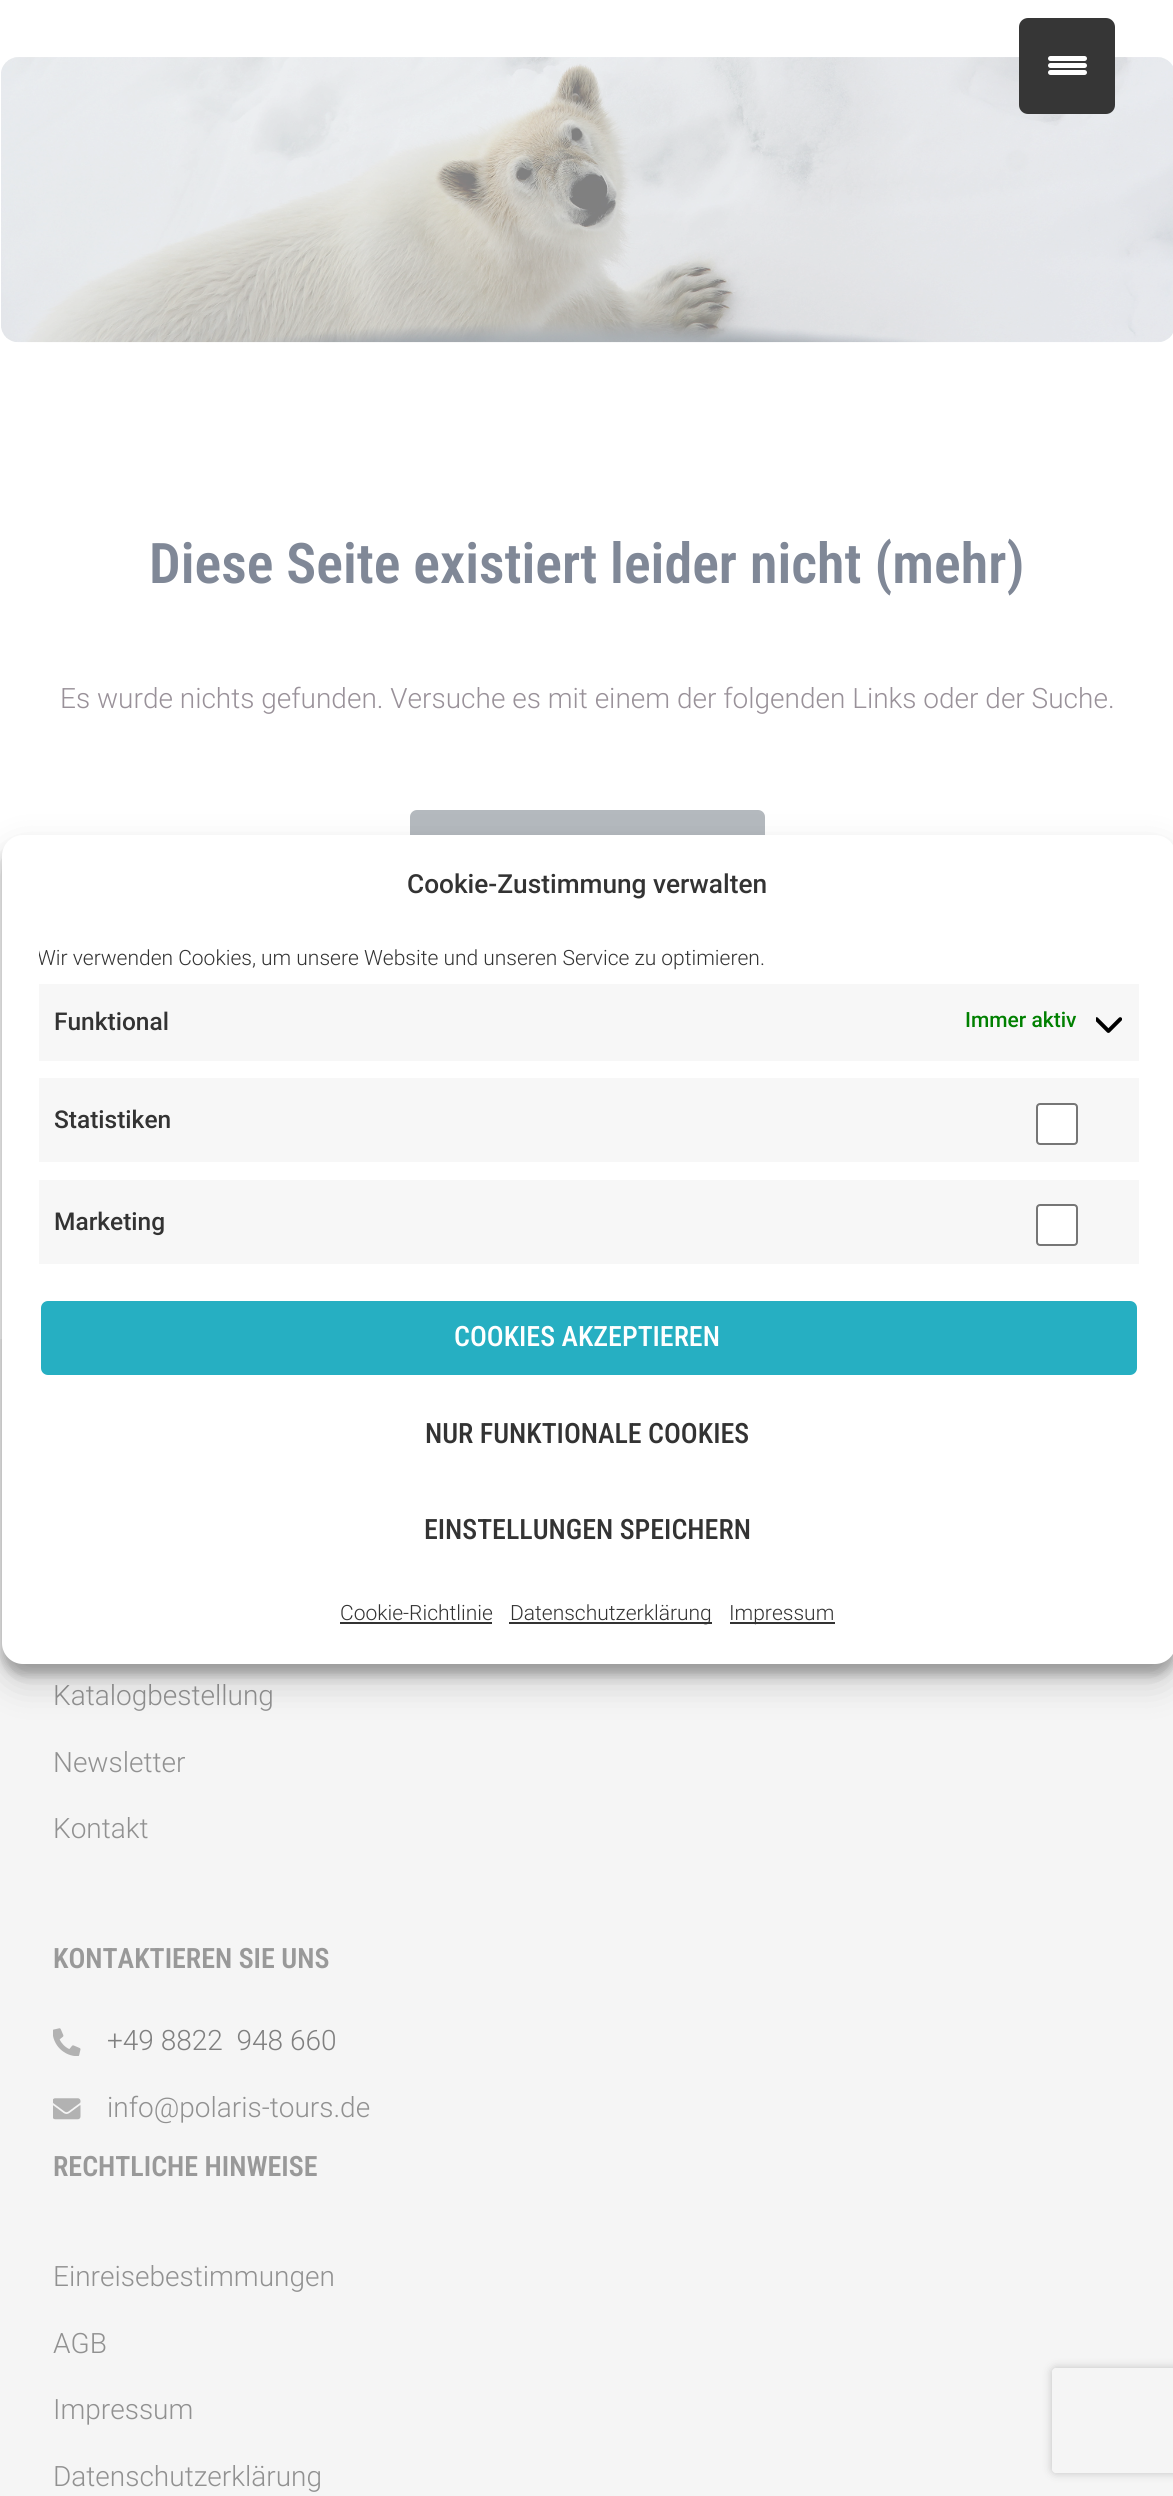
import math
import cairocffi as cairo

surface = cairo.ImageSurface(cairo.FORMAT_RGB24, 1173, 2496)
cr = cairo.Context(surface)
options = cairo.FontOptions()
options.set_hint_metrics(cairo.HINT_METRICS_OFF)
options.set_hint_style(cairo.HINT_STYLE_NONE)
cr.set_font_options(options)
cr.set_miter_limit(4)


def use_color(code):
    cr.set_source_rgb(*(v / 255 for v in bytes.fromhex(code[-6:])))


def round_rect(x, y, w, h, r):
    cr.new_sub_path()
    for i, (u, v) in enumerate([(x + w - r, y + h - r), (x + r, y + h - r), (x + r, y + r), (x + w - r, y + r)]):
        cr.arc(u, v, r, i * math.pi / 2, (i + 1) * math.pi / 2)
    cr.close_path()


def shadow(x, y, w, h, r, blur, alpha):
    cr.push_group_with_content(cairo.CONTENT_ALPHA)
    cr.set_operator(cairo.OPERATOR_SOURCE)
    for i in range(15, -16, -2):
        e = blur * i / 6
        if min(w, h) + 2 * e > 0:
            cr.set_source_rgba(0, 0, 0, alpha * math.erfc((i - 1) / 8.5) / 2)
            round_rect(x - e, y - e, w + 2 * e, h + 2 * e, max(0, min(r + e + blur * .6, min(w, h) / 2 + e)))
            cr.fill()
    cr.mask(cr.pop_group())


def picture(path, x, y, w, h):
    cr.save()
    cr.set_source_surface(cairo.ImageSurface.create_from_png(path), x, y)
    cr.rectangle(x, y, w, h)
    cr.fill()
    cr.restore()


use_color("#ffffff")
cr.paint()
picture("img1.png", 1, 57, 1172, 286)
use_color("#363636")
round_rect(1019, 18, 96, 96, 9)
cr.fill()
use_color("#ffffff")
round_rect(1048, 63, 39, 5, 2.5)
cr.fill()
round_rect(1048, 56, 39, 5, 2.5)
cr.fill()
round_rect(1048, 70, 39, 5, 2.5)
cr.fill()
cr.select_font_face("Roboto Condensed SemiBold")
cr.set_font_size(56)
use_color("#808897")
cr.move_to(149, 583)
cr.show_text("Diese Seite existiert leider nicht (mehr)")
cr.select_font_face("Roboto Light")
cr.set_font_size(28)
use_color("#999199")
cr.move_to(60, 708)
cr.show_text("Es wurde nichts gefunden. Versuche es mit einem der folgenden Links oder der Suche.")
use_color("#b4b9be")
round_rect(410, 810, 355, 81, 7)
cr.fill()
use_color("#f5f5f5")
cr.rectangle(0, 1339, 1173, 1157)
cr.fill()
use_color("#919191")
cr.move_to(53, 1705)
cr.show_text("Katalogbestellung")
cr.move_to(53, 1772)
cr.show_text("Newsletter")
cr.move_to(53, 1838)
cr.show_text("Kontakt")
cr.select_font_face("Roboto Condensed SemiBold")
use_color("#999999")
cr.move_to(53, 1968)
cr.show_text("KONTAKTIEREN SIE UNS")
picture("img2.png", 53, 2028, 28, 28)
cr.select_font_face("Roboto Light")
use_color("#808080")
cr.move_to(107, 2050)
cr.show_text("+49 8822  948 660")
picture("img3.png", 53, 2098, 28, 22)
use_color("#919191")
cr.move_to(107, 2117)
cr.show_text("info@polaris-tours.de")
cr.select_font_face("Roboto Condensed SemiBold")
use_color("#999999")
cr.move_to(53, 2176)
cr.show_text("RECHTLICHE HINWEISE")
cr.select_font_face("Roboto Light")
use_color("#919191")
cr.move_to(53, 2286)
cr.show_text("Einreisebestimmungen")
cr.move_to(53, 2353)
cr.show_text("AGB")
cr.move_to(53, 2419)
cr.show_text("Impressum")
cr.move_to(53, 2486)
cr.show_text("Datenschutzerklärung")
use_color("#000000")
shadow(2, 845, 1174, 830, 21, 5, 0.23)
shadow(2, 852, 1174, 830, 21, 17.5, 0.19)
use_color("#ffffff")
round_rect(3, 836, 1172, 827, 20)
cr.fill_preserve()
cr.stroke()
cr.select_font_face("Roboto Medium")
cr.set_font_size(26.25)
use_color("#333333")
cr.move_to(407, 893)
cr.show_text("Cookie-Zustimmung verwalten")
cr.save()
cr.rectangle(39, 943, 1100, 321)
cr.clip()
cr.select_font_face("Roboto Light")
cr.set_font_size(21)
cr.move_to(37, 965)
cr.show_text("Wir verwenden Cookies, um unsere Website und unseren Service zu optimieren.")
cr.restore()
use_color("#f7f7f7")
cr.rectangle(39, 984, 1100, 77)
cr.fill()
cr.set_font_size(24.5)
use_color("#333333")
cr.move_to(54, 1030)
cr.show_text("Funktional")
cr.set_font_size(21)
use_color("#008000")
cr.move_to(965, 1027)
cr.show_text("Immer aktiv")
picture("img4.png", 1096, 1017, 26, 16)
use_color("#f7f7f7")
cr.rectangle(39, 1078, 1100, 84)
cr.fill()
cr.set_font_size(24.5)
use_color("#333333")
cr.move_to(54, 1128)
cr.show_text("Statistiken")
use_color("#ffffff")
round_rect(1037, 1104, 40, 40, 3)
cr.fill_preserve()
use_color("#767676")
cr.stroke()
use_color("#f7f7f7")
cr.rectangle(39, 1180, 1100, 84)
cr.fill()
use_color("#333333")
cr.move_to(54, 1230)
cr.show_text("Marketing")
use_color("#ffffff")
round_rect(1037, 1205, 40, 40, 3)
cr.fill_preserve()
use_color("#767676")
cr.stroke()
use_color("#26afc2")
round_rect(40, 1300, 1098, 76, 8)
cr.fill_preserve()
use_color("#ffffff")
cr.stroke()
cr.select_font_face("Roboto Condensed Medium")
cr.set_font_size(28)
cr.move_to(454, 1346)
cr.show_text("COOKIES AKZEPTIEREN")
use_color("#333333")
cr.move_to(425, 1443)
cr.show_text("NUR FUNKTIONALE COOKIES")
cr.move_to(424, 1539)
cr.show_text("EINSTELLUNGEN SPEICHERN")
cr.select_font_face("Roboto Light")
cr.set_font_size(21)
cr.move_to(340, 1620)
cr.show_text("Cookie-Richtlinie")
cr.rectangle(340, 1622, 152, 2)
cr.fill()
cr.rectangle(509, 1622, 203, 2)
cr.fill()
cr.move_to(510, 1620)
cr.show_text("Datenschutzerklärung")
cr.rectangle(730, 1622, 105, 2)
cr.fill()
cr.move_to(729, 1620)
cr.show_text("Impressum")
cr.save()
cr.set_fill_rule(cairo.FILL_RULE_EVEN_ODD)
cr.new_path()
cr.move_to(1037, 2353)
cr.line_to(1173, 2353)
cr.line_to(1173, 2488)
cr.line_to(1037, 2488)
cr.close_path()
cr.move_to(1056, 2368)
cr.line_to(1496, 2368)
cr.curve_to(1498, 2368, 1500, 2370, 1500, 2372)
cr.line_to(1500, 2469)
cr.curve_to(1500, 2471, 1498, 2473, 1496, 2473)
cr.line_to(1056, 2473)
cr.curve_to(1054, 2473, 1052, 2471, 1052, 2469)
cr.line_to(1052, 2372)
cr.curve_to(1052, 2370, 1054, 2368, 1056, 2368)
cr.close_path()
cr.clip()
use_color("#c0c0c0")
shadow(1052, 2368, 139, 105, 4, 4.5, 1)
cr.restore()
surface.write_to_png("result.png")
